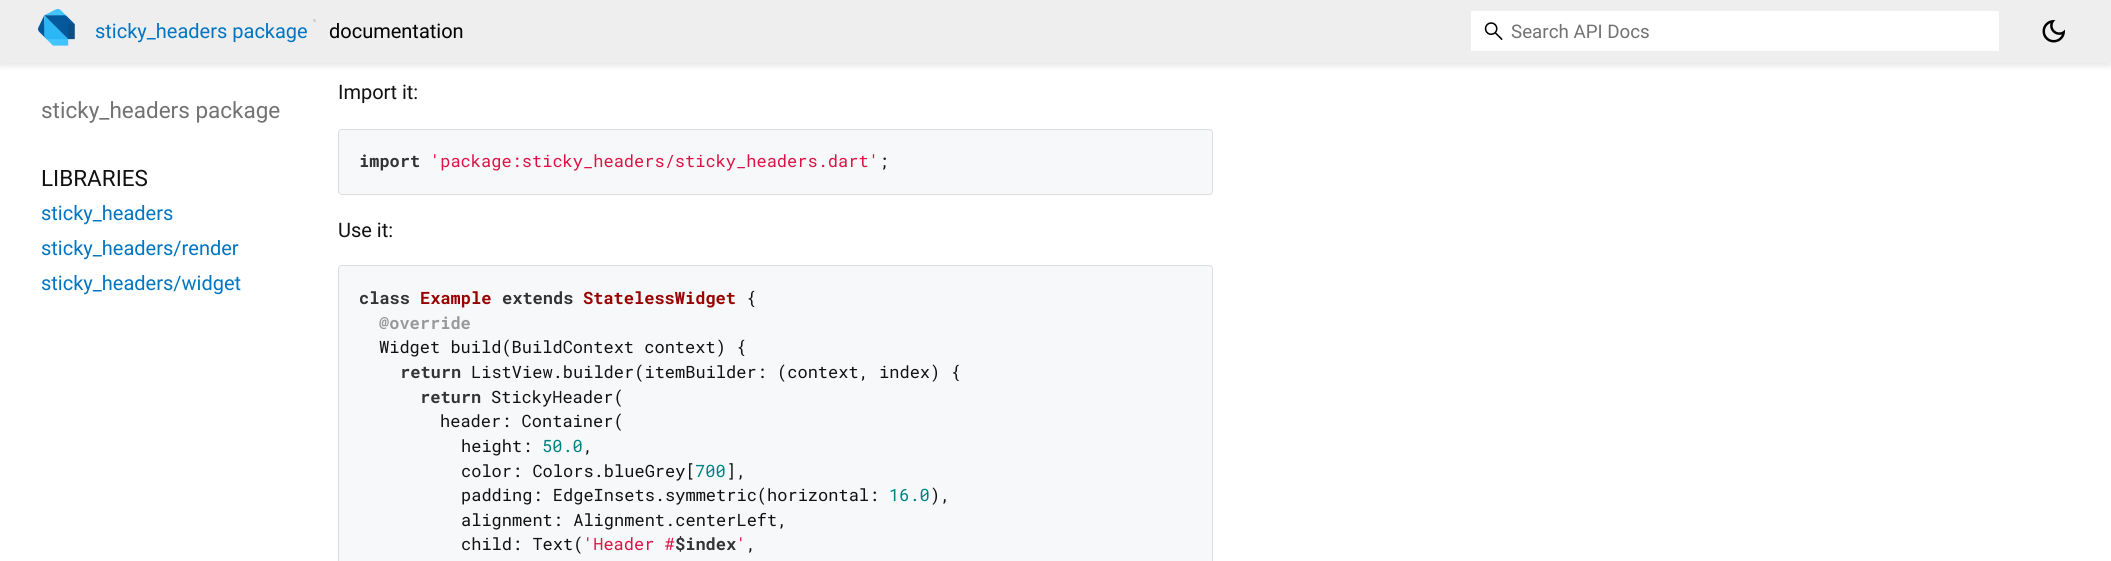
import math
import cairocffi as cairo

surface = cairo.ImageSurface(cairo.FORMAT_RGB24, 2111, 561)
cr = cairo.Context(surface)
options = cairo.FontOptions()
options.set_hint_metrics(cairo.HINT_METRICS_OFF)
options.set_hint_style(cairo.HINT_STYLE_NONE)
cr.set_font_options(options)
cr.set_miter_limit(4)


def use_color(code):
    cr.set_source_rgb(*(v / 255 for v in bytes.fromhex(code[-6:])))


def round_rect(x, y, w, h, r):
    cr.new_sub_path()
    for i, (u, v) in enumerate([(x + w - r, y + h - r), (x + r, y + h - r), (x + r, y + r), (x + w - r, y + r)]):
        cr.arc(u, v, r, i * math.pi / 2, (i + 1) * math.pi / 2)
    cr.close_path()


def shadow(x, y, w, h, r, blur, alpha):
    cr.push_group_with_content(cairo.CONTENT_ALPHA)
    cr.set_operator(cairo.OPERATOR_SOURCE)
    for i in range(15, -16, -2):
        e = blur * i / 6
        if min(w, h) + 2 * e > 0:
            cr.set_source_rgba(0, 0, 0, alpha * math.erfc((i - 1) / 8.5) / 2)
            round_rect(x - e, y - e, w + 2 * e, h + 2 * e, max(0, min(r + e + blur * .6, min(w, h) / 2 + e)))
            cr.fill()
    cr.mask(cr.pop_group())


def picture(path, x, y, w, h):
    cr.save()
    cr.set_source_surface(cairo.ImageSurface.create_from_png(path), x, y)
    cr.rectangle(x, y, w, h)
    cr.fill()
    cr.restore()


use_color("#ffffff")
cr.paint()
use_color("#000000")
shadow(0, 4, 2111, 62, 0, 3, 0.1)
use_color("#eeeeee")
cr.rectangle(0, 0, 2111, 63)
cr.fill()
picture("img1.png", 38, 9, 37, 37)
cr.select_font_face("Roboto")
cr.set_font_size(20)
use_color("#0175c2")
cr.move_to(95, 38)
cr.show_text("sticky_headers package")
use_color("#d4d4d4")
cr.rectangle(313, 19, 3, 3)
cr.fill()
use_color("#000000")
cr.move_to(329, 38)
cr.show_text("documentation")
use_color("#ffffff")
cr.rectangle(1471, 11, 528, 40)
cr.fill()
picture("img2.png", 1484, 22, 19, 19)
cr.set_font_size(18.75)
use_color("#727272")
cr.move_to(1511, 38)
cr.show_text("Search API Docs")
picture("img3.png", 2042, 20, 23, 23)
cr.set_font_size(22.5)
cr.move_to(41, 118)
cr.show_text("sticky_headers package")
use_color("#111111")
cr.move_to(41, 186)
cr.show_text("LIBRARIES")
cr.set_font_size(20)
use_color("#0175c2")
cr.move_to(41, 220)
cr.show_text("sticky_headers")
cr.move_to(41, 255)
cr.show_text("sticky_headers/render")
cr.move_to(41, 290)
cr.show_text("sticky_headers/widget")
use_color("#111111")
cr.move_to(338, 99)
cr.show_text("Import it:")
use_color("#f6f8fa")
round_rect(338.5, 129.5, 874, 65, 3.5)
cr.fill_preserve()
use_color("#dddddd")
cr.set_line_width(1)
cr.stroke()
cr.select_font_face("Roboto Mono", cairo.FONT_SLANT_NORMAL, cairo.FONT_WEIGHT_BOLD)
cr.set_font_size(17)
use_color("#333333")
cr.move_to(359, 167)
cr.show_text("import")
cr.select_font_face("Roboto Mono")
use_color("#dd1144")
cr.move_to(430, 167)
cr.show_text("'package:sticky_headers/sticky_headers.dart'")
use_color("#111111")
cr.move_to(879, 167)
cr.show_text(";")
cr.select_font_face("Roboto")
cr.set_font_size(20)
cr.move_to(338, 237)
cr.show_text("Use it:")
use_color("#f6f8fa")
round_rect(338.5, 265.5, 874, 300, 3.5)
cr.fill_preserve()
use_color("#dddddd")
cr.stroke()
cr.select_font_face("Roboto Mono", cairo.FONT_SLANT_NORMAL, cairo.FONT_WEIGHT_BOLD)
cr.set_font_size(17)
use_color("#333333")
cr.move_to(359, 304)
cr.show_text("class")
use_color("#990000")
cr.move_to(420, 304)
cr.show_text("Example")
use_color("#333333")
cr.move_to(502, 304)
cr.show_text("extends")
use_color("#990000")
cr.move_to(583, 304)
cr.show_text("StatelessWidget")
cr.select_font_face("Roboto Mono")
use_color("#111111")
cr.move_to(746, 304)
cr.show_text("{")
cr.select_font_face("Roboto Mono", cairo.FONT_SLANT_NORMAL, cairo.FONT_WEIGHT_BOLD)
use_color("#999999")
cr.move_to(379, 329)
cr.show_text("@override")
cr.select_font_face("Roboto Mono")
use_color("#111111")
cr.move_to(379, 353)
cr.show_text("Widget build(BuildContext context) {")
cr.select_font_face("Roboto Mono", cairo.FONT_SLANT_NORMAL, cairo.FONT_WEIGHT_BOLD)
use_color("#333333")
cr.move_to(400, 378)
cr.show_text("return")
cr.select_font_face("Roboto Mono")
use_color("#111111")
cr.move_to(471, 378)
cr.show_text("ListView.builder(itemBuilder: (context, index) {")
cr.select_font_face("Roboto Mono", cairo.FONT_SLANT_NORMAL, cairo.FONT_WEIGHT_BOLD)
use_color("#333333")
cr.move_to(420, 403)
cr.show_text("return")
cr.select_font_face("Roboto Mono")
use_color("#111111")
cr.move_to(491, 403)
cr.show_text("StickyHeader(")
cr.move_to(440, 427)
cr.show_text("header: Container(")
cr.move_to(461, 452)
cr.show_text("height:")
use_color("#008080")
cr.move_to(542, 452)
cr.show_text("50.0")
use_color("#111111")
cr.move_to(583, 452)
cr.show_text(",")
cr.move_to(461, 477)
cr.show_text("color: Colors.blueGrey[")
use_color("#008080")
cr.move_to(695, 477)
cr.show_text("700")
use_color("#111111")
cr.move_to(726, 477)
cr.show_text("],")
cr.move_to(461, 501)
cr.show_text("padding: EdgeInsets.symmetric(horizontal:")
use_color("#008080")
cr.move_to(889, 501)
cr.show_text("16.0")
use_color("#111111")
cr.move_to(930, 501)
cr.show_text("),")
cr.move_to(461, 526)
cr.show_text("alignment: Alignment.centerLeft,")
cr.move_to(461, 550)
cr.show_text("child: Text(")
use_color("#dd1144")
cr.move_to(583, 550)
cr.show_text("'Header #")
cr.select_font_face("Roboto Mono", cairo.FONT_SLANT_NORMAL, cairo.FONT_WEIGHT_BOLD)
use_color("#333333")
cr.move_to(675, 550)
cr.show_text("$index")
cr.select_font_face("Roboto Mono")
use_color("#dd1144")
cr.move_to(736, 550)
cr.show_text("'")
use_color("#111111")
cr.move_to(746, 550)
cr.show_text(",")
surface.write_to_png("result.png")
